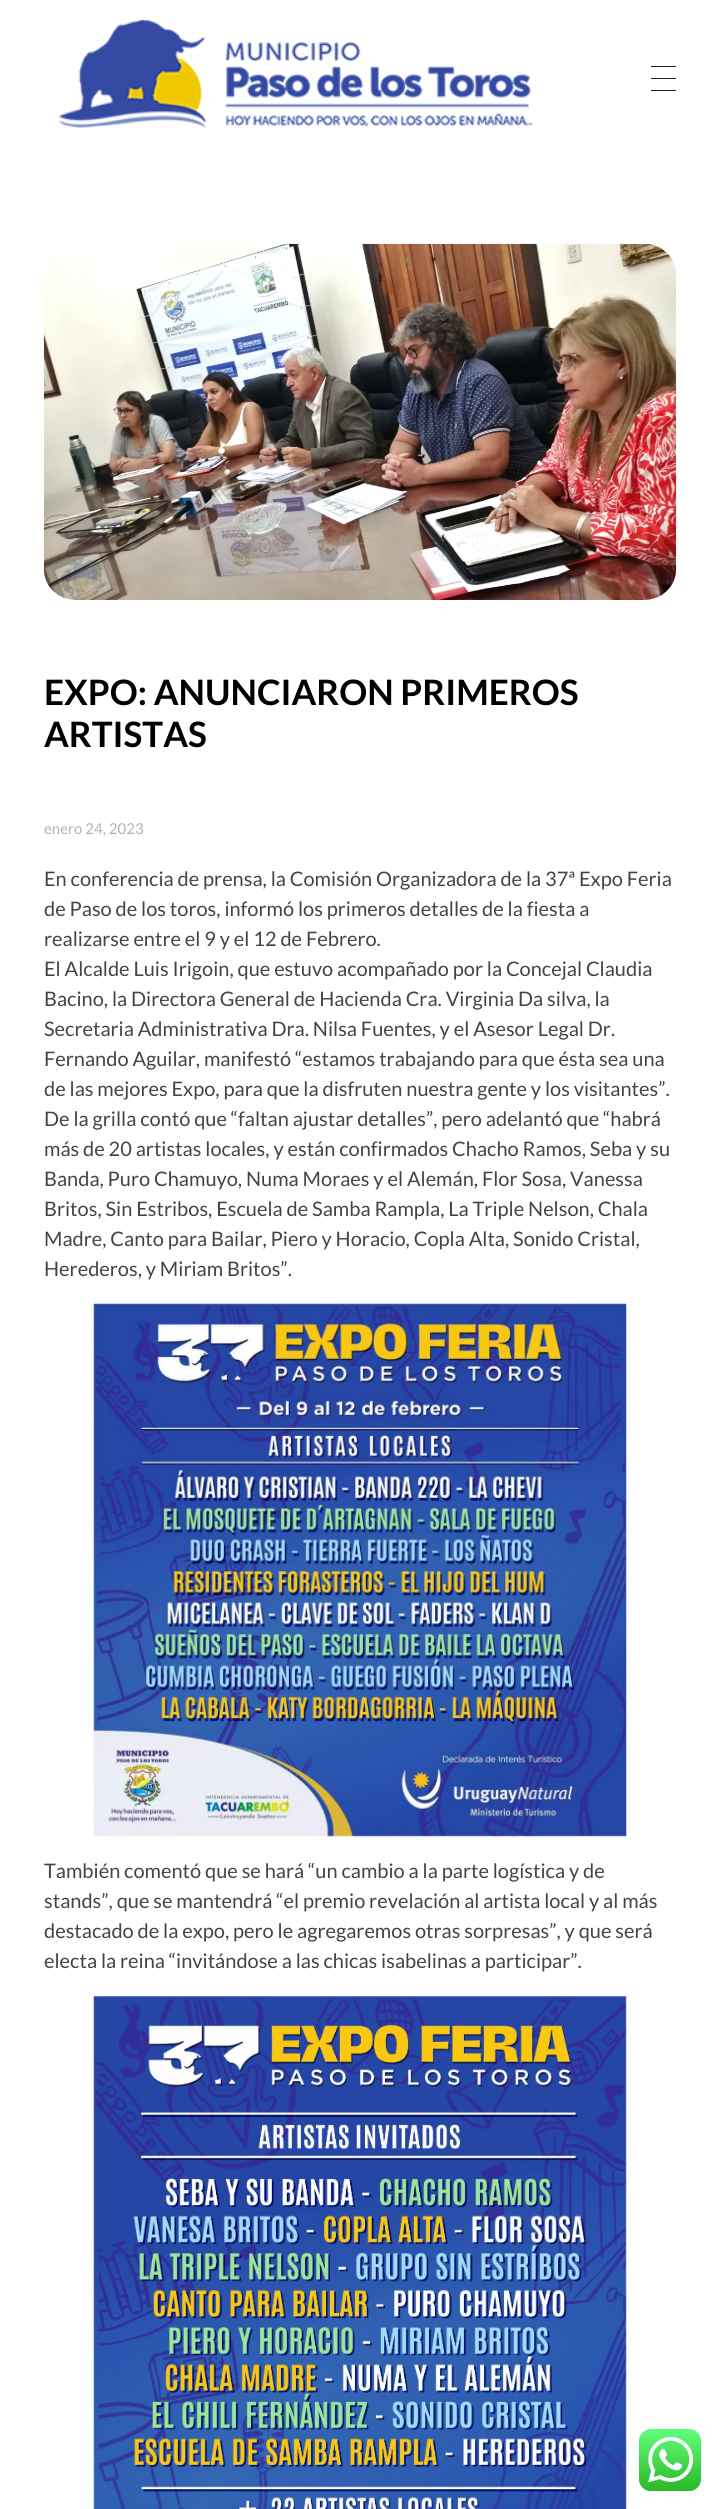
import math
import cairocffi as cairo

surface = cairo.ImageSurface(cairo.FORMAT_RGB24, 720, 2509)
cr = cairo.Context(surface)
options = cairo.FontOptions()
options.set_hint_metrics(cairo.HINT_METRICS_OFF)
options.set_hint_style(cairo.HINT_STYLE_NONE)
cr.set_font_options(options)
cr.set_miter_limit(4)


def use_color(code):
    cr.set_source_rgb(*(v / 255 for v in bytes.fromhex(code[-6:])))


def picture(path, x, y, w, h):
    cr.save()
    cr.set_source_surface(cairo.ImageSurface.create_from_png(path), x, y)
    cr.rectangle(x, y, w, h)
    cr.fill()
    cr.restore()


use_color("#ffffff")
cr.paint()
picture("img1.png", 58, 19, 475, 109)
use_color("#222222")
cr.rectangle(651, 66, 25, 1)
cr.fill()
cr.rectangle(651, 78, 25, 1)
cr.fill()
cr.rectangle(651, 90, 25, 1)
cr.fill()
picture("img2.png", 43, 243, 634, 357)
cr.select_font_face("Lato", cairo.FONT_SLANT_NORMAL, cairo.FONT_WEIGHT_BOLD)
cr.set_font_size(35)
use_color("#000000")
cr.move_to(44, 705)
cr.show_text("EXPO: ANUNCIARON PRIMEROS")
cr.move_to(44, 747)
cr.show_text("ARTISTAS")
cr.select_font_face("Lato")
cr.set_font_size(15)
use_color("#afb2b6")
cr.move_to(44, 834)
cr.show_text("enero 24, 2023")
cr.set_font_size(20)
use_color("#444444")
cr.move_to(44, 886)
cr.show_text("En conferencia de prensa, la Comisión Organizadora de la 37ª Expo Feria")
cr.move_to(44, 916)
cr.show_text("de Paso de los toros, informó los primeros detalles de la fiesta a")
cr.move_to(44, 946)
cr.show_text("realizarse entre el 9 y el 12 de Febrero.")
cr.move_to(44, 976)
cr.show_text("El Alcalde Luis Irigoin, que estuvo acompañado por la Concejal Claudia")
cr.move_to(44, 1006)
cr.show_text("Bacino, la Directora General de Hacienda Cra. Virginia Da silva, la")
cr.move_to(44, 1036)
cr.show_text("Secretaria Administrativa Dra. Nilsa Fuentes, y el Asesor Legal Dr.")
cr.move_to(44, 1066)
cr.show_text("Fernando Aguilar, manifestó “estamos trabajando para que ésta sea una")
cr.move_to(44, 1096)
cr.show_text("de las mejores Expo, para que la disfruten nuestra gente y los visitantes”.")
cr.move_to(44, 1126)
cr.show_text("De la grilla contó que “faltan ajustar detalles”, pero adelantó que “habrá")
cr.move_to(44, 1156)
cr.show_text("más de 20 artistas locales, y están confirmados Chacho Ramos, Seba y su")
cr.move_to(44, 1186)
cr.show_text("Banda, Puro Chamuyo, Numa Moraes y el Alemán, Flor Sosa, Vanessa")
cr.move_to(44, 1216)
cr.show_text("Britos, Sin Estribos, Escuela de Samba Rampla, La Triple Nelson, Chala")
cr.move_to(44, 1246)
cr.show_text("Madre, Canto para Bailar, Piero y Horacio, Copla Alta, Sonido Cristal,")
cr.move_to(44, 1276)
cr.show_text("Herederos, y Miriam Britos”.")
picture("img3.png", 93, 1303, 534, 534)
cr.move_to(44, 1878)
cr.show_text("También comentó que se hará “un cambio a la parte logística y de")
cr.move_to(44, 1908)
cr.show_text("stands”, que se mantendrá “el premio revelación al artista local y al más")
cr.move_to(44, 1938)
cr.show_text("destacado de la expo, pero le agregaremos otras sorpresas”, y que será")
cr.move_to(44, 1968)
cr.show_text("electa la reina “invitándose a las chicas isabelinas a participar”.")
picture("img4.png", 93, 1996, 534, 513)
picture("img5.png", 639, 2429, 62, 62)
surface.write_to_png("result.png")
